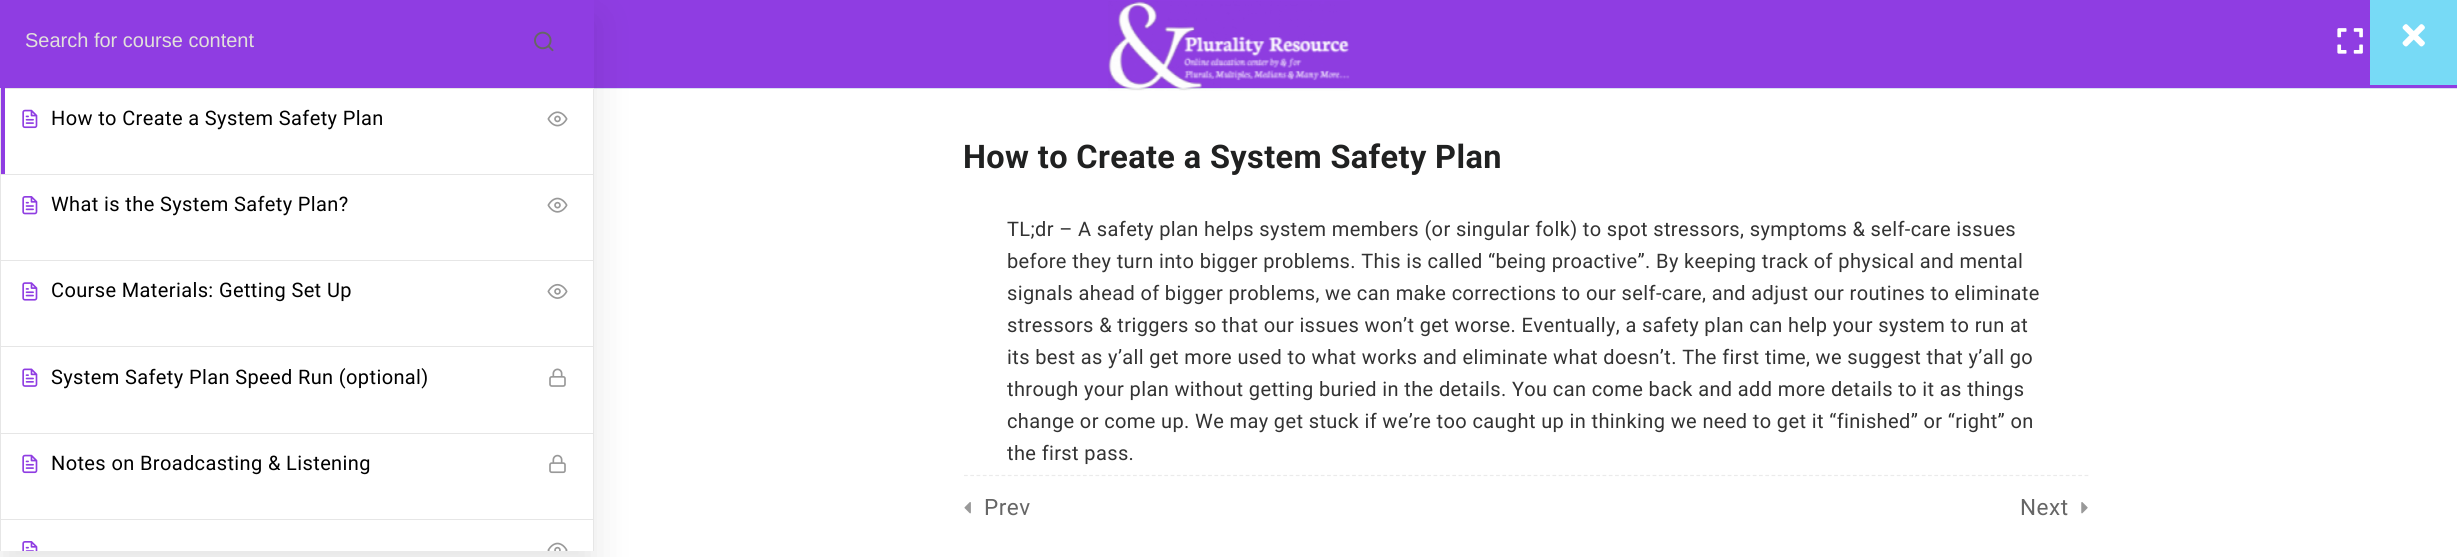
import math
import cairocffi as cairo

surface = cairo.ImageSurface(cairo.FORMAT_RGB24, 2457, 557)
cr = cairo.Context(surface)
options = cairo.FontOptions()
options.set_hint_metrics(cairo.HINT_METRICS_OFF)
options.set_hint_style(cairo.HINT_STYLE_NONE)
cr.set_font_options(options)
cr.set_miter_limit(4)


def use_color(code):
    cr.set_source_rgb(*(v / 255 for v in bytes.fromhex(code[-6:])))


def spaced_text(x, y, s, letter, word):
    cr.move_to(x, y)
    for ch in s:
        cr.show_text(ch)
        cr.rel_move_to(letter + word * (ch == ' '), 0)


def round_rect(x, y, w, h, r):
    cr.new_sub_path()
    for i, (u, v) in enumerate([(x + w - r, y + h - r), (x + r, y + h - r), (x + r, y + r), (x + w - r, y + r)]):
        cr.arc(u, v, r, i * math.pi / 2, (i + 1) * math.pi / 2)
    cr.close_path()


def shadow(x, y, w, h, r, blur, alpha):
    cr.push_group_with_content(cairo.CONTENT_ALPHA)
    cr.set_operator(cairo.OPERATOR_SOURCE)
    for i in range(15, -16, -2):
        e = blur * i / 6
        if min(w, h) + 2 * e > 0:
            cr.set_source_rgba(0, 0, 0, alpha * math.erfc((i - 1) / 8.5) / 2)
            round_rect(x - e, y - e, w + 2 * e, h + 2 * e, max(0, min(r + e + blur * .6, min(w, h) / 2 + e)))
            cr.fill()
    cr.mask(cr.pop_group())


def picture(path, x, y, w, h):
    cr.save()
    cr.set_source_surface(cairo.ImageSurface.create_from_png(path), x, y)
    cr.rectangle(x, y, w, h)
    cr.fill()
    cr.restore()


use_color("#ffffff")
cr.paint()
use_color("#8f3de2")
cr.rectangle(594, 0, 1863, 88)
cr.fill()
use_color("#d9e0f1")
cr.rectangle(594, 88, 1863, 1)
cr.fill()
cr.save()
cr.set_fill_rule(cairo.FILL_RULE_EVEN_ODD)
cr.new_path()
cr.move_to(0, 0)
cr.line_to(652, 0)
cr.line_to(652, 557)
cr.line_to(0, 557)
cr.close_path()
cr.move_to(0, 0)
cr.line_to(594, 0)
cr.line_to(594, 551)
cr.line_to(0, 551)
cr.close_path()
cr.clip()
use_color("#000000")
shadow(0, 19, 594, 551, 0, 19, 0.1)
cr.restore()
use_color("#8f3de2")
cr.rectangle(0, 0, 594, 88)
cr.fill()
cr.select_font_face("Liberation Sans")
cr.set_font_size(20)
use_color("#e2e0db")
cr.move_to(25, 47)
cr.show_text("Search for course content")
picture("img1.png", 534, 31, 20, 21)
cr.save()
cr.rectangle(0, 88, 594, 463)
cr.clip()
cr.rectangle(0.5, -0.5, 593, 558)
use_color("#e6e6e6")
cr.set_line_width(1)
cr.stroke()
cr.restore()
use_color("#e6e6e6")
cr.rectangle(1, 88, 592, 1)
cr.fill()
use_color("#8f3de2")
cr.rectangle(1, 88, 4, 87)
cr.fill()
picture("img2.png", 22, 109, 16, 20)
cr.select_font_face("Roboto")
use_color("#000000")
spaced_text(51, 125, "How to Create a System Safety Plan", 0.38, 0)
picture("img3.png", 547, 111, 21, 16)
use_color("#e6e6e6")
cr.rectangle(1, 174, 592, 1)
cr.fill()
picture("img4.png", 22, 196, 16, 19)
use_color("#000000")
spaced_text(51, 211, "What is the System Safety Plan?", 0.38, 0)
picture("img5.png", 547, 197, 21, 16)
use_color("#e6e6e6")
cr.rectangle(1, 260, 592, 1)
cr.fill()
picture("img6.png", 22, 282, 16, 19)
use_color("#000000")
spaced_text(51, 297, "Course Materials: Getting Set Up", 0.38, 0)
picture("img7.png", 547, 283, 21, 16)
use_color("#e6e6e6")
cr.rectangle(1, 346, 592, 1)
cr.fill()
picture("img8.png", 22, 368, 16, 19)
use_color("#000000")
spaced_text(51, 384, "System Safety Plan Speed Run (optional)", 0.38, 0)
picture("img9.png", 549, 368, 17, 19)
use_color("#e6e6e6")
cr.rectangle(1, 433, 592, 1)
cr.fill()
picture("img2.png", 22, 454, 16, 20)
use_color("#000000")
spaced_text(51, 470, "Notes on Broadcasting & Listening", 0.38, 0)
picture("img10.png", 549, 454, 17, 20)
use_color("#e6e6e6")
cr.rectangle(1, 519, 592, 1)
cr.fill()
picture("img11.png", 22, 541, 16, 10)
picture("img12.png", 547, 542, 21, 9)
picture("img13.png", 1108, 1, 242, 90)
picture("img14.png", 2337, 28, 26, 26)
use_color("#77daf6")
cr.rectangle(2370, 0, 87, 85)
cr.fill()
picture("img15.png", 2402, 24, 23, 23)
cr.select_font_face("Roboto", cairo.FONT_SLANT_NORMAL, cairo.FONT_WEIGHT_BOLD)
cr.set_font_size(32.5)
use_color("#202121")
spaced_text(963, 168, "How to Create a System Safety Plan", 0.38, 0)
cr.select_font_face("Roboto")
cr.set_font_size(20)
use_color("#333333")
spaced_text(1007, 236, "TL;dr – A safety plan helps system members (or singular folk) to spot stressors, symptoms & self-care issues", 0.38, 0)
spaced_text(1007, 268, "before they turn into bigger problems. This is called “being proactive”. By keeping track of physical and mental", 0.38, 0)
spaced_text(1007, 300, "signals ahead of bigger problems, we can make corrections to our self-care, and adjust our routines to eliminate", 0.38, 0)
spaced_text(1007, 332, "stressors & triggers so that our issues won’t get worse. Eventually, a safety plan can help your system to run at", 0.38, 0)
spaced_text(1007, 364, "its best as y’all get more used to what works and eliminate what doesn’t. The first time, we suggest that y’all go", 0.38, 0)
spaced_text(1007, 396, "through your plan without getting buried in the details. You can come back and add more details to it as things", 0.38, 0)
spaced_text(1007, 428, "change or come up. We may get stuck if we’re too caught up in thinking we need to get it “finished” or “right” on", 0.38, 0)
spaced_text(1007, 460, "the first pass.", 0.38, 0)
cr.new_path()
cr.move_to(964, 475.5)
cr.line_to(2089, 475.5)
use_color("#ebebeb")
cr.set_line_width(1.2)
cr.set_dash([3.75, 2.51])
cr.stroke()
picture("img16.png", 964, 502, 7, 12)
cr.set_font_size(22.5)
use_color("#666666")
spaced_text(984, 515, "Prev", 0.5, 0)
spaced_text(2020, 515, "Next", 0.5, 0)
picture("img17.png", 2081, 502, 7, 12)
surface.write_to_png("result.png")
